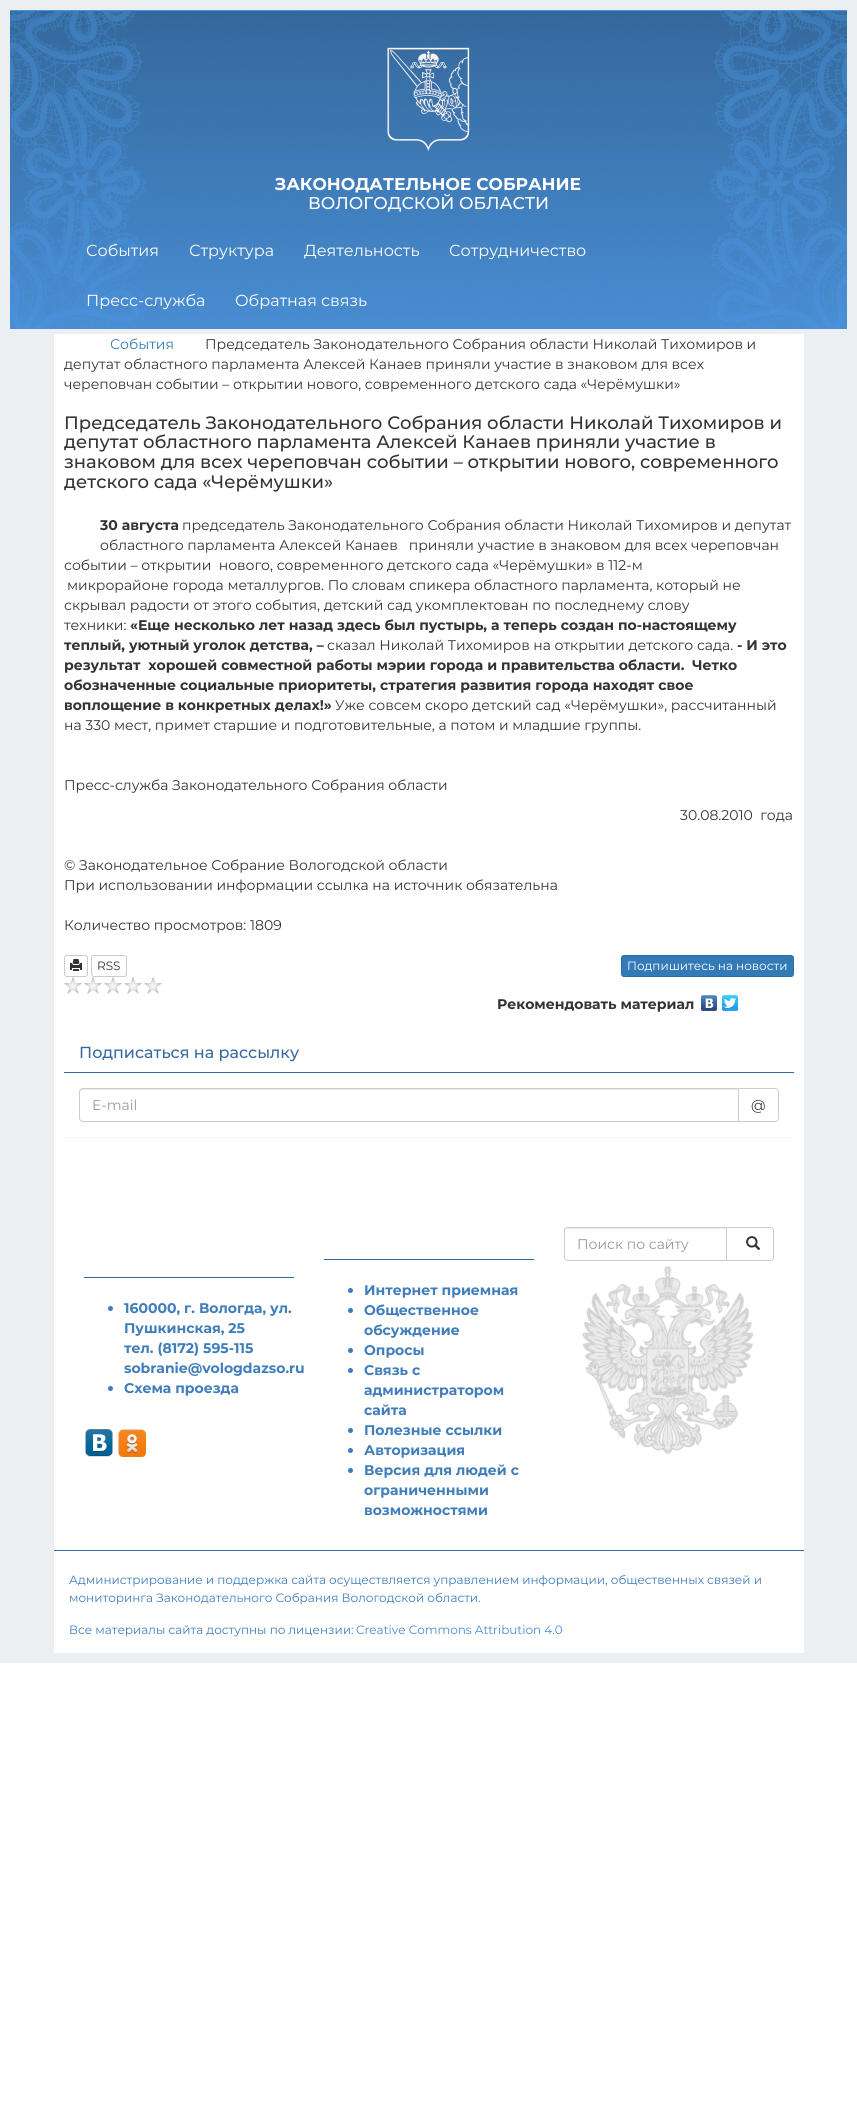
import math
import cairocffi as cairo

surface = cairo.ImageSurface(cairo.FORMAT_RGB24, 857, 2118)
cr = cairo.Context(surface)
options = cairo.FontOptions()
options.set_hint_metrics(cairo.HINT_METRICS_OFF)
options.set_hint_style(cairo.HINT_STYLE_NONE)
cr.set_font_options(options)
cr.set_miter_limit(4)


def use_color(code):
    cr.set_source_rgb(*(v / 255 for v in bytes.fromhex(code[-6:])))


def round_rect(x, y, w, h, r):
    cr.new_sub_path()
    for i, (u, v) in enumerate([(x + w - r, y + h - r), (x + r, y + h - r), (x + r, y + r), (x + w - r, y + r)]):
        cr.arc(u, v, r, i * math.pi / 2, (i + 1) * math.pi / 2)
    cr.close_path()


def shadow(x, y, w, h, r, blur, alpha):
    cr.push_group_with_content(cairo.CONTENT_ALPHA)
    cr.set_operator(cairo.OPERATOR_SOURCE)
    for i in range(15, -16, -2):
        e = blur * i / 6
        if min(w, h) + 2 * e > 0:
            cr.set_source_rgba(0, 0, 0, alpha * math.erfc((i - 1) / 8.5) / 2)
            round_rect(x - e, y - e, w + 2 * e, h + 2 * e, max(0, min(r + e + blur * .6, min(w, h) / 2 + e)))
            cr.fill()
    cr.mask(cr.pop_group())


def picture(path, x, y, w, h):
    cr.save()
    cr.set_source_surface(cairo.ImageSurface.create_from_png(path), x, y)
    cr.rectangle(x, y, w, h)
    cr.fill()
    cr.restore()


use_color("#ffffff")
cr.paint()
use_color("#eceff1")
cr.rectangle(0, 0, 857, 1663)
cr.fill()
picture("img1.png", 10, 10, 837, 319)
picture("img2.png", 387, 47, 83, 104)
cr.select_font_face("Montserrat", cairo.FONT_SLANT_NORMAL, cairo.FONT_WEIGHT_BOLD)
cr.set_font_size(17.1)
use_color("#ffffff")
cr.move_to(275, 190)
cr.show_text("ЗАКОНОДАТЕЛЬНОЕ СОБРАНИЕ")
cr.select_font_face("Montserrat Medium")
cr.move_to(308, 209)
cr.show_text("ВОЛОГОДСКОЙ ОБЛАСТИ")
cr.select_font_face("Montserrat")
cr.set_font_size(16)
cr.move_to(86, 256)
cr.show_text("События")
cr.move_to(189, 256)
cr.show_text("Структура")
cr.move_to(304, 256)
cr.show_text("Деятельность")
cr.move_to(449, 256)
cr.show_text("Сотрудничество")
cr.move_to(86, 306)
cr.show_text("Пресс-служба")
cr.move_to(235, 306)
cr.show_text("Обратная связь")
cr.rectangle(54, 334, 750, 1319)
cr.fill()
cr.set_font_size(14)
use_color("#337ab7")
cr.move_to(110, 349)
cr.show_text("События")
use_color("#333333")
cr.move_to(205, 349)
cr.show_text("Председатель Законодательного Собрания области Николай Тихомиров и")
cr.move_to(64, 369)
cr.show_text("депутат областного парламента Алексей Канаев приняли участие в знаковом для всех")
cr.move_to(64, 389)
cr.show_text("череповчан событии – открытии нового, современного детского сада «Черёмушки»")
cr.select_font_face("Montserrat Medium")
cr.set_font_size(18)
cr.move_to(64, 429)
cr.show_text("Председатель Законодательного Собрания области Николай Тихомиров и")
cr.move_to(64, 448)
cr.show_text("депутат областного парламента Алексей Канаев приняли участие в")
cr.move_to(64, 468)
cr.show_text("знаковом для всех череповчан событии – открытии нового, современного")
cr.move_to(64, 488)
cr.show_text("детского сада «Черёмушки»")
cr.select_font_face("Montserrat", cairo.FONT_SLANT_NORMAL, cairo.FONT_WEIGHT_BOLD)
cr.set_font_size(14)
cr.move_to(100, 530)
cr.show_text("30 августа")
cr.select_font_face("Montserrat")
cr.move_to(182, 530)
cr.show_text("председатель Законодательного Собрания области Николай Тихомиров и депутат")
cr.move_to(100, 550)
cr.show_text("областного парламента Алексей Канаев   приняли участие в знаковом для всех череповчан")
cr.move_to(64, 570)
cr.show_text("событии – открытии  нового, современного детского сада «Черёмушки» в 112-м")
cr.move_to(67, 590)
cr.show_text("микрорайоне города металлургов. По словам спикера областного парламента, который не")
cr.move_to(64, 610)
cr.show_text("скрывал радости от этого события, детский сад укомплектован по последнему слову")
cr.move_to(64, 630)
cr.show_text("техники:")
cr.select_font_face("Montserrat", cairo.FONT_SLANT_NORMAL, cairo.FONT_WEIGHT_BOLD)
cr.move_to(130, 630)
cr.show_text("«Еще несколько лет назад здесь был пустырь, а теперь создан по-настоящему")
cr.move_to(64, 650)
cr.show_text("теплый, уютный уголок детства, –")
cr.select_font_face("Montserrat")
cr.move_to(327, 650)
cr.show_text("сказал Николай Тихомиров на открытии детского сада.")
cr.select_font_face("Montserrat", cairo.FONT_SLANT_NORMAL, cairo.FONT_WEIGHT_BOLD)
cr.move_to(737, 650)
cr.show_text("- И это")
cr.move_to(64, 670)
cr.show_text("результат  хорошей совместной работы мэрии города и правительства области.  Четко")
cr.move_to(64, 690)
cr.show_text("обозначенные социальные приоритеты, стратегия развития города находят свое")
cr.move_to(64, 710)
cr.show_text("воплощение в конкретных делах!»")
cr.select_font_face("Montserrat")
cr.move_to(335, 710)
cr.show_text("Уже совсем скоро детский сад «Черёмушки», рассчитанный")
cr.move_to(64, 730)
cr.show_text("на 330 мест, примет старшие и подготовительные, а потом и младшие группы.")
cr.move_to(64, 790)
cr.show_text("Пресс-служба Законодательного Собрания области")
cr.move_to(680, 820)
cr.show_text("30.08.2010  года")
cr.move_to(64, 870)
cr.show_text("© Законодательное Собрание Вологодской области")
cr.move_to(64, 890)
cr.show_text("При использовании информации ссылка на источник обязательна")
cr.move_to(64, 930)
cr.show_text("Количество просмотров: 1809")
round_rect(64.5, 955.5, 23, 21, 2.5)
use_color("#cccccc")
cr.set_line_width(1)
cr.stroke()
picture("img3.png", 70, 959, 12, 12)
round_rect(91.5, 955.5, 35, 21, 2.5)
cr.stroke()
cr.set_font_size(12)
use_color("#333333")
cr.move_to(97, 970)
cr.show_text("RSS")
use_color("#337ab7")
round_rect(621.5, 955.5, 172, 21, 2.5)
cr.fill_preserve()
use_color("#2e6da4")
cr.stroke()
use_color("#ffffff")
cr.move_to(627, 970)
cr.show_text("Подпишитесь на новости")
picture("img4.png", 64, 977, 18, 17)
picture("img4.png", 84, 977, 18, 17)
picture("img4.png", 104, 977, 18, 17)
picture("img4.png", 124, 977, 18, 17)
picture("img4.png", 144, 977, 18, 17)
cr.select_font_face("Montserrat", cairo.FONT_SLANT_NORMAL, cairo.FONT_WEIGHT_BOLD)
cr.set_font_size(14)
use_color("#333333")
cr.move_to(497, 1009)
cr.show_text("Рекомендовать материал")
picture("img5.png", 701, 995, 16, 16)
picture("img6.png", 722, 995, 16, 16)
cr.save()
cr.rectangle(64, 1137, 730, 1)
cr.clip()
use_color("#000000")
shadow(64, 1035, 730, 103, 0, 0.5, 0.05)
cr.restore()
use_color("#356a9f")
cr.rectangle(64, 1072, 730, 1)
cr.fill()
cr.select_font_face("Montserrat Medium")
cr.set_font_size(16)
cr.move_to(79, 1058)
cr.show_text("Подписаться на рассылку")
use_color("#ececec")
cr.new_path()
cr.move_to(83, 1090)
cr.line_to(738, 1090)
cr.line_to(738, 1089)
cr.line_to(83, 1089)
cr.curve_to(81, 1089, 80, 1090, 80, 1092)
cr.line_to(80, 1093)
cr.curve_to(80, 1091, 81, 1090, 83, 1090)
cr.close_path()
cr.fill()
cr.new_path()
cr.move_to(83, 1088.5)
cr.line_to(738.5, 1088.5)
cr.line_to(738.5, 1121.5)
cr.line_to(83, 1121.5)
cr.curve_to(81, 1121.5, 79.5, 1120, 79.5, 1118)
cr.line_to(79.5, 1092)
cr.curve_to(79.5, 1090, 81, 1088.5, 83, 1088.5)
cr.close_path()
use_color("#cccccc")
cr.stroke()
cr.select_font_face("Montserrat")
cr.set_font_size(14)
use_color("#999999")
cr.move_to(92, 1110)
cr.show_text("E-mail")
use_color("#ffffff")
cr.new_path()
cr.move_to(738.5, 1088.5)
cr.line_to(775, 1088.5)
cr.curve_to(777, 1088.5, 778.5, 1090, 778.5, 1092)
cr.line_to(778.5, 1118)
cr.curve_to(778.5, 1120, 777, 1121.5, 775, 1121.5)
cr.line_to(738.5, 1121.5)
cr.close_path()
cr.fill_preserve()
use_color("#cccccc")
cr.stroke()
use_color("#333333")
cr.move_to(751, 1110)
cr.show_text("@")
use_color("#ececec")
cr.new_path()
cr.move_to(568, 1229)
cr.line_to(726, 1229)
cr.line_to(726, 1228)
cr.line_to(568, 1228)
cr.curve_to(566, 1228, 565, 1230, 565, 1232)
cr.curve_to(565, 1230, 566, 1229, 568, 1229)
cr.close_path()
cr.fill()
cr.new_path()
cr.move_to(568, 1227.5)
cr.line_to(726.5, 1227.5)
cr.line_to(726.5, 1260.5)
cr.line_to(568, 1260.5)
cr.curve_to(566, 1260.5, 564.5, 1259, 564.5, 1257)
cr.line_to(564.5, 1231)
cr.curve_to(564.5, 1229, 566, 1227.5, 568, 1227.5)
cr.close_path()
use_color("#cccccc")
cr.stroke()
use_color("#999999")
cr.move_to(577, 1249)
cr.show_text("Поиск по сайту")
use_color("#ffffff")
cr.new_path()
cr.move_to(726.5, 1227.5)
cr.line_to(770, 1227.5)
cr.curve_to(772, 1227.5, 773.5, 1229, 773.5, 1231)
cr.line_to(773.5, 1257)
cr.curve_to(773.5, 1259, 772, 1260.5, 770, 1260.5)
cr.line_to(726.5, 1260.5)
cr.close_path()
cr.fill_preserve()
use_color("#cccccc")
cr.stroke()
picture("img7.png", 746, 1236, 15, 14)
picture("img8.png", 582, 1266, 171, 189)
use_color("#356a9f")
cr.rectangle(84, 1277, 210, 1)
cr.fill()
use_color("#3f7dbb")
cr.arc(110.5, 1308.5, 2.5, 0, 2 * math.pi)
cr.fill()
cr.select_font_face("Montserrat", cairo.FONT_SLANT_NORMAL, cairo.FONT_WEIGHT_BOLD)
cr.move_to(124, 1313)
cr.show_text("160000, г. Вологда, ул.")
cr.move_to(124, 1333)
cr.show_text("Пушкинская, 25")
cr.move_to(124, 1353)
cr.show_text("тел. (8172) 595-115")
cr.move_to(124, 1373)
cr.show_text("sobranie@vologdazso.ru")
cr.new_path()
cr.arc(110.5, 1388.5, 2.5, 0, 2 * math.pi)
cr.fill()
cr.move_to(124, 1393)
cr.show_text("Схема проезда")
picture("img9.png", 85, 1429, 28, 28)
picture("img10.png", 118, 1429, 28, 28)
use_color("#356a9f")
cr.rectangle(324, 1259, 210, 1)
cr.fill()
use_color("#3f7dbb")
cr.arc(350.5, 1290.5, 2.5, 0, 2 * math.pi)
cr.fill()
cr.move_to(364, 1295)
cr.show_text("Интернет приемная")
cr.new_path()
cr.arc(350.5, 1310.5, 2.5, 0, 2 * math.pi)
cr.fill()
cr.move_to(364, 1315)
cr.show_text("Общественное")
cr.move_to(364, 1335)
cr.show_text("обсуждение")
cr.new_path()
cr.arc(350.5, 1350.5, 2.5, 0, 2 * math.pi)
cr.fill()
cr.move_to(364, 1355)
cr.show_text("Опросы")
cr.new_path()
cr.arc(350.5, 1370.5, 2.5, 0, 2 * math.pi)
cr.fill()
cr.move_to(364, 1375)
cr.show_text("Связь с")
cr.move_to(364, 1395)
cr.show_text("администратором")
cr.move_to(364, 1415)
cr.show_text("сайта")
cr.new_path()
cr.arc(350.5, 1430.5, 2.5, 0, 2 * math.pi)
cr.fill()
cr.move_to(364, 1435)
cr.show_text("Полезные ссылки")
cr.new_path()
cr.arc(350.5, 1450.5, 2.5, 0, 2 * math.pi)
cr.fill()
cr.move_to(364, 1455)
cr.show_text("Авторизация")
cr.new_path()
cr.arc(350.5, 1470.5, 2.5, 0, 2 * math.pi)
cr.fill()
cr.move_to(364, 1475)
cr.show_text("Версия для людей с")
cr.move_to(364, 1495)
cr.show_text("ограниченными")
cr.move_to(364, 1515)
cr.show_text("возможностями")
use_color("#356a9f")
cr.rectangle(54, 1550, 750, 1)
cr.fill()
cr.select_font_face("Montserrat")
cr.set_font_size(12)
use_color("#3f7dbb")
cr.move_to(69, 1584)
cr.show_text("Администрирование и поддержка сайта осуществляется управлением информации, общественных связей и")
cr.move_to(69, 1602)
cr.show_text("мониторинга Законодательного Собрания Вологодской области.")
cr.move_to(69, 1634)
cr.show_text("Все материалы сайта доступны по лицензии:")
use_color("#478bd0")
cr.move_to(356, 1634)
cr.show_text("Creative Commons Attribution 4.0")
surface.write_to_png("result.png")
